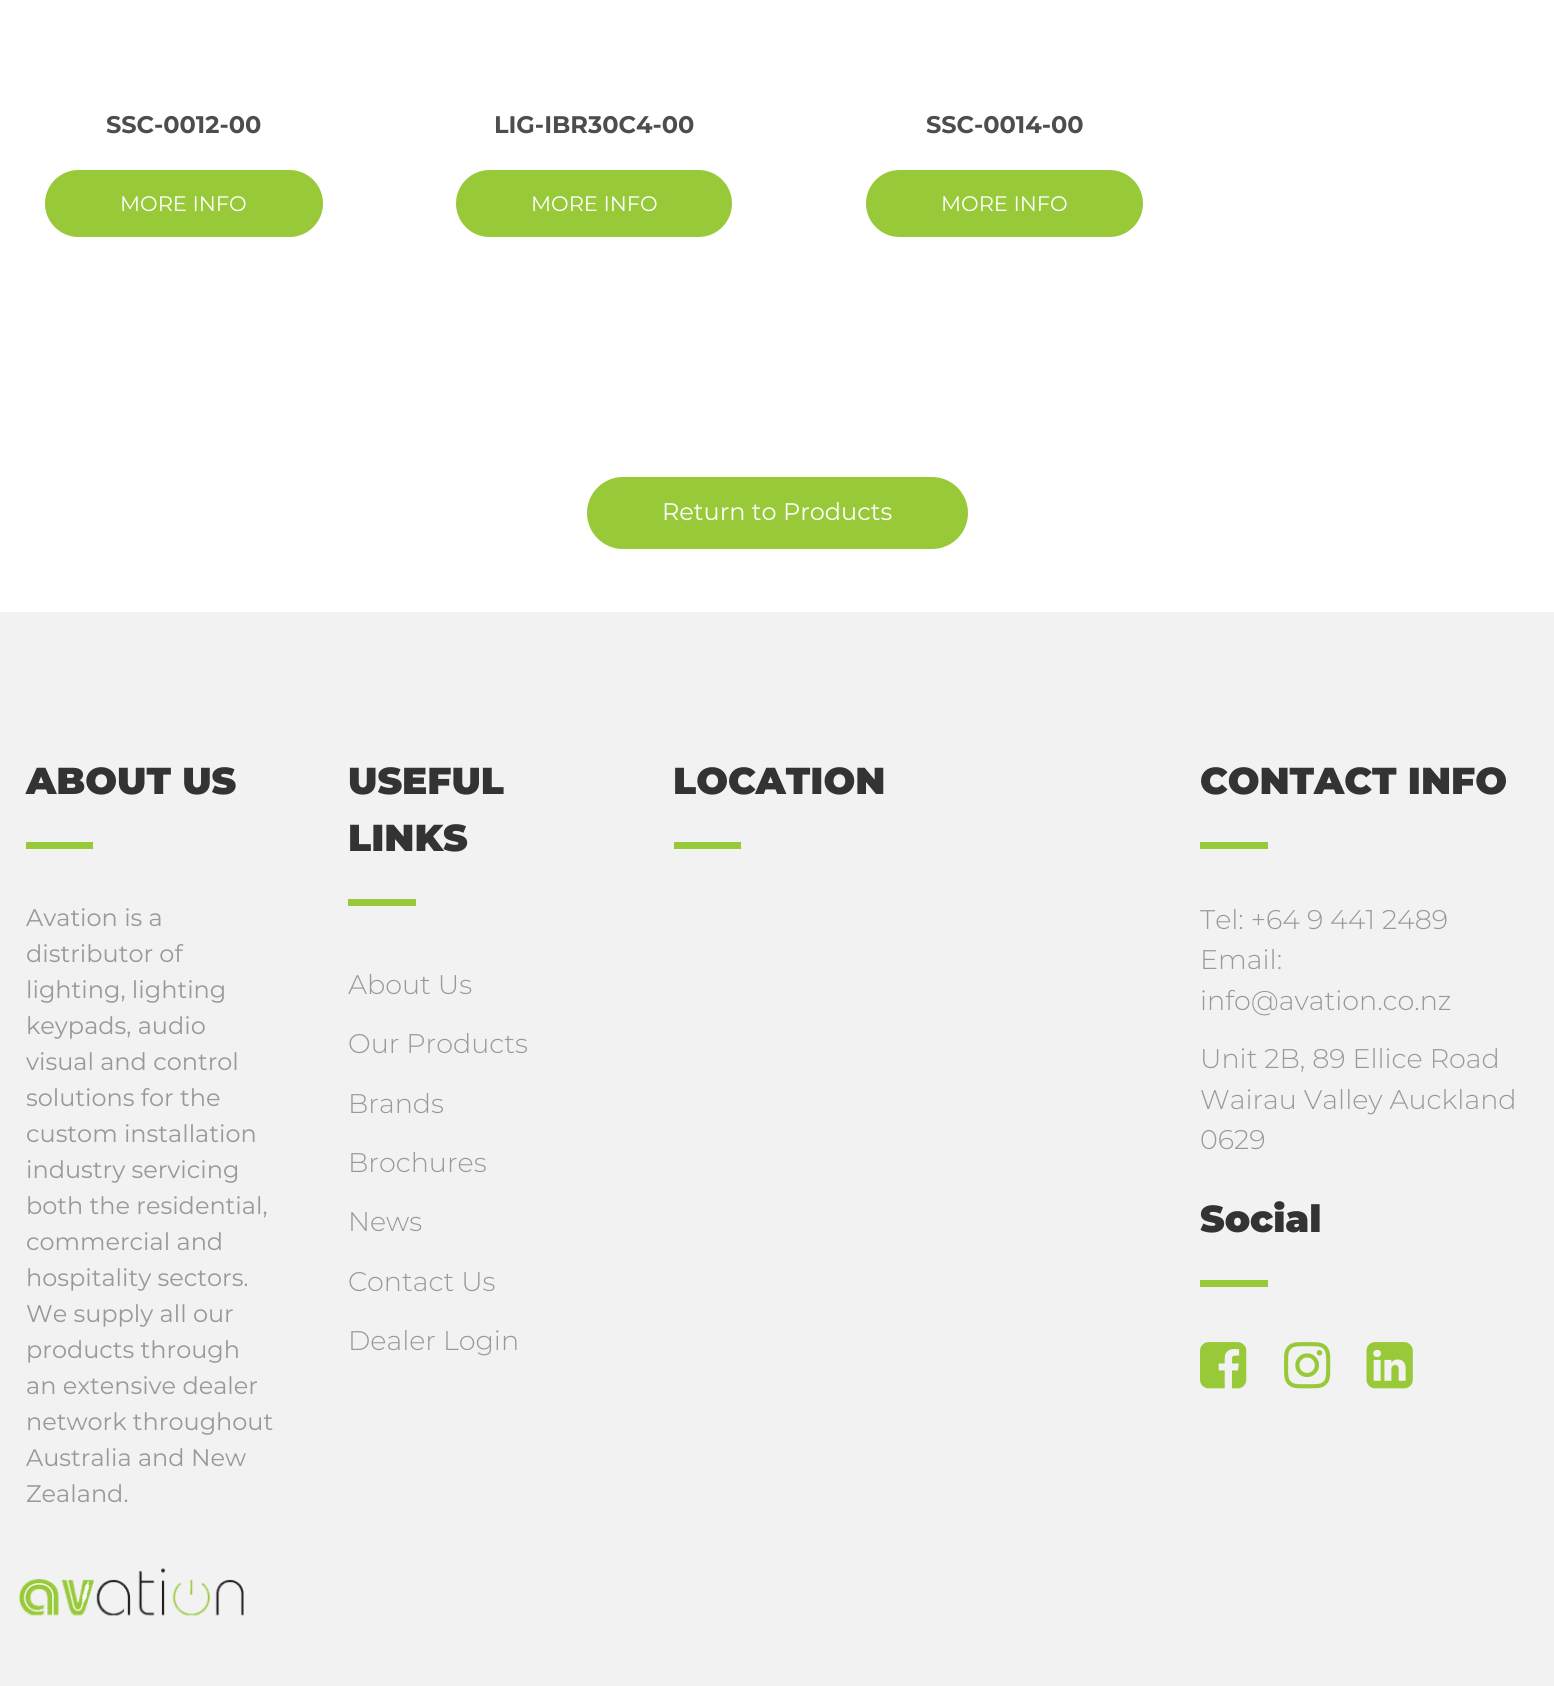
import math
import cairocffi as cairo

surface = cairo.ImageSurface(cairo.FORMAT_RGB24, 1554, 1686)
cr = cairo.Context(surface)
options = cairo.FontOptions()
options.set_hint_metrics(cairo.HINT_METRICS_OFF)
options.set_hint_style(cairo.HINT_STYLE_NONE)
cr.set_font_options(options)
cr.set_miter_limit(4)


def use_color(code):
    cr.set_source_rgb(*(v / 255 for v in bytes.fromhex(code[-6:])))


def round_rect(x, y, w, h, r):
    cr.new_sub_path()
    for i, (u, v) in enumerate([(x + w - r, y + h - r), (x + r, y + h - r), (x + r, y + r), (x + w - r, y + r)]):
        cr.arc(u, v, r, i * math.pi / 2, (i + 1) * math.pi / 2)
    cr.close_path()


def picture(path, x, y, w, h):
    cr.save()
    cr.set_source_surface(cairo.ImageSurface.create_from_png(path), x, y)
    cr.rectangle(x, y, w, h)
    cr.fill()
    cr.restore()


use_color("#ffffff")
cr.paint()
cr.select_font_face("Montserrat", cairo.FONT_SLANT_NORMAL, cairo.FONT_WEIGHT_BOLD)
cr.set_font_size(24)
use_color("#4d4d4d")
cr.move_to(106, 133)
cr.show_text("SSC-0012-00")
use_color("#98c939")
round_rect(45, 170, 278, 67, 33.5)
cr.fill()
cr.select_font_face("Montserrat")
cr.set_font_size(21)
use_color("#ffffff")
cr.move_to(120, 211)
cr.show_text("MORE INFO")
cr.select_font_face("Montserrat", cairo.FONT_SLANT_NORMAL, cairo.FONT_WEIGHT_BOLD)
cr.set_font_size(24)
use_color("#4d4d4d")
cr.move_to(494, 133)
cr.show_text("LIG-IBR30C4-00")
use_color("#98c939")
round_rect(456, 170, 276, 67, 33.5)
cr.fill()
cr.select_font_face("Montserrat")
cr.set_font_size(21)
use_color("#ffffff")
cr.move_to(531, 211)
cr.show_text("MORE INFO")
cr.select_font_face("Montserrat", cairo.FONT_SLANT_NORMAL, cairo.FONT_WEIGHT_BOLD)
cr.set_font_size(24)
use_color("#4d4d4d")
cr.move_to(926, 133)
cr.show_text("SSC-0014-00")
use_color("#98c939")
round_rect(866, 170, 277, 67, 33.5)
cr.fill()
cr.select_font_face("Montserrat")
cr.set_font_size(21)
use_color("#ffffff")
cr.move_to(941, 211)
cr.show_text("MORE INFO")
use_color("#98c939")
round_rect(587, 477, 381, 72, 36)
cr.fill()
cr.set_font_size(24)
use_color("#ffffff")
cr.move_to(662, 520)
cr.show_text("Return to Products")
use_color("#f2f2f2")
cr.rectangle(0, 612, 1554, 1074)
cr.fill()
cr.select_font_face("Montserrat Black")
cr.set_font_size(37.5)
use_color("#333333")
cr.move_to(26, 794)
cr.show_text("ABOUT US")
use_color("#98c939")
cr.rectangle(26, 842, 67, 7)
cr.fill()
cr.select_font_face("Montserrat")
cr.set_font_size(24)
use_color("#999999")
cr.move_to(26, 926)
cr.show_text("Avation is a")
cr.move_to(26, 962)
cr.show_text("distributor of")
cr.move_to(26, 998)
cr.show_text("lighting, lighting")
cr.move_to(26, 1034)
cr.show_text("keypads, audio")
cr.move_to(26, 1070)
cr.show_text("visual and control")
cr.move_to(26, 1106)
cr.show_text("solutions for the")
cr.move_to(26, 1142)
cr.show_text("custom installation")
cr.move_to(26, 1178)
cr.show_text("industry servicing")
cr.move_to(26, 1214)
cr.show_text("both the residential,")
cr.move_to(26, 1250)
cr.show_text("commercial and")
cr.move_to(26, 1286)
cr.show_text("hospitality sectors.")
cr.move_to(26, 1322)
cr.show_text("We supply all our")
cr.move_to(26, 1358)
cr.show_text("products through")
cr.move_to(26, 1394)
cr.show_text("an extensive dealer")
cr.move_to(26, 1430)
cr.show_text("network throughout")
cr.move_to(26, 1466)
cr.show_text("Australia and New")
cr.move_to(26, 1502)
cr.show_text("Zealand.")
picture("img1.png", 19, 1568, 225, 48)
cr.select_font_face("Montserrat Black")
cr.set_font_size(37.5)
use_color("#333333")
cr.move_to(348, 794)
cr.show_text("USEFUL")
cr.move_to(348, 851)
cr.show_text("LINKS")
use_color("#98c939")
cr.rectangle(348, 899, 68, 7)
cr.fill()
cr.select_font_face("Montserrat Light")
cr.set_font_size(27)
use_color("#999999")
cr.move_to(348, 994)
cr.show_text("About Us")
cr.move_to(348, 1053)
cr.show_text("Our Products")
cr.move_to(348, 1113)
cr.show_text("Brands")
cr.move_to(348, 1172)
cr.show_text("Brochures")
cr.move_to(348, 1231)
cr.show_text("News")
cr.move_to(348, 1291)
cr.show_text("Contact Us")
cr.move_to(348, 1350)
cr.show_text("Dealer Login")
cr.select_font_face("Montserrat Black")
cr.set_font_size(37.5)
use_color("#333333")
cr.move_to(673, 794)
cr.show_text("LOCATION")
use_color("#98c939")
cr.rectangle(674, 842, 67, 7)
cr.fill()
use_color("#333333")
cr.move_to(1200, 794)
cr.show_text("CONTACT INFO")
use_color("#98c939")
cr.rectangle(1200, 842, 68, 7)
cr.fill()
cr.select_font_face("Montserrat Light")
cr.set_font_size(27)
use_color("#999999")
cr.move_to(1200, 929)
cr.show_text("Tel: +64 9 441 2489")
cr.move_to(1200, 969)
cr.show_text("Email:")
cr.move_to(1200, 1010)
cr.show_text("info@avation.co.nz")
cr.move_to(1200, 1068)
cr.show_text("Unit 2B, 89 Ellice Road")
cr.move_to(1200, 1109)
cr.show_text("Wairau Valley Auckland")
cr.move_to(1200, 1149)
cr.show_text("0629")
cr.select_font_face("Montserrat Black")
cr.set_font_size(37.5)
use_color("#333333")
cr.move_to(1200, 1232)
cr.show_text("Social")
use_color("#98c939")
cr.rectangle(1200, 1280, 68, 7)
cr.fill()
picture("img2.png", 1200, 1342, 47, 47)
picture("img3.png", 1284, 1342, 47, 47)
picture("img4.png", 1366, 1342, 47, 47)
surface.write_to_png("result.png")
